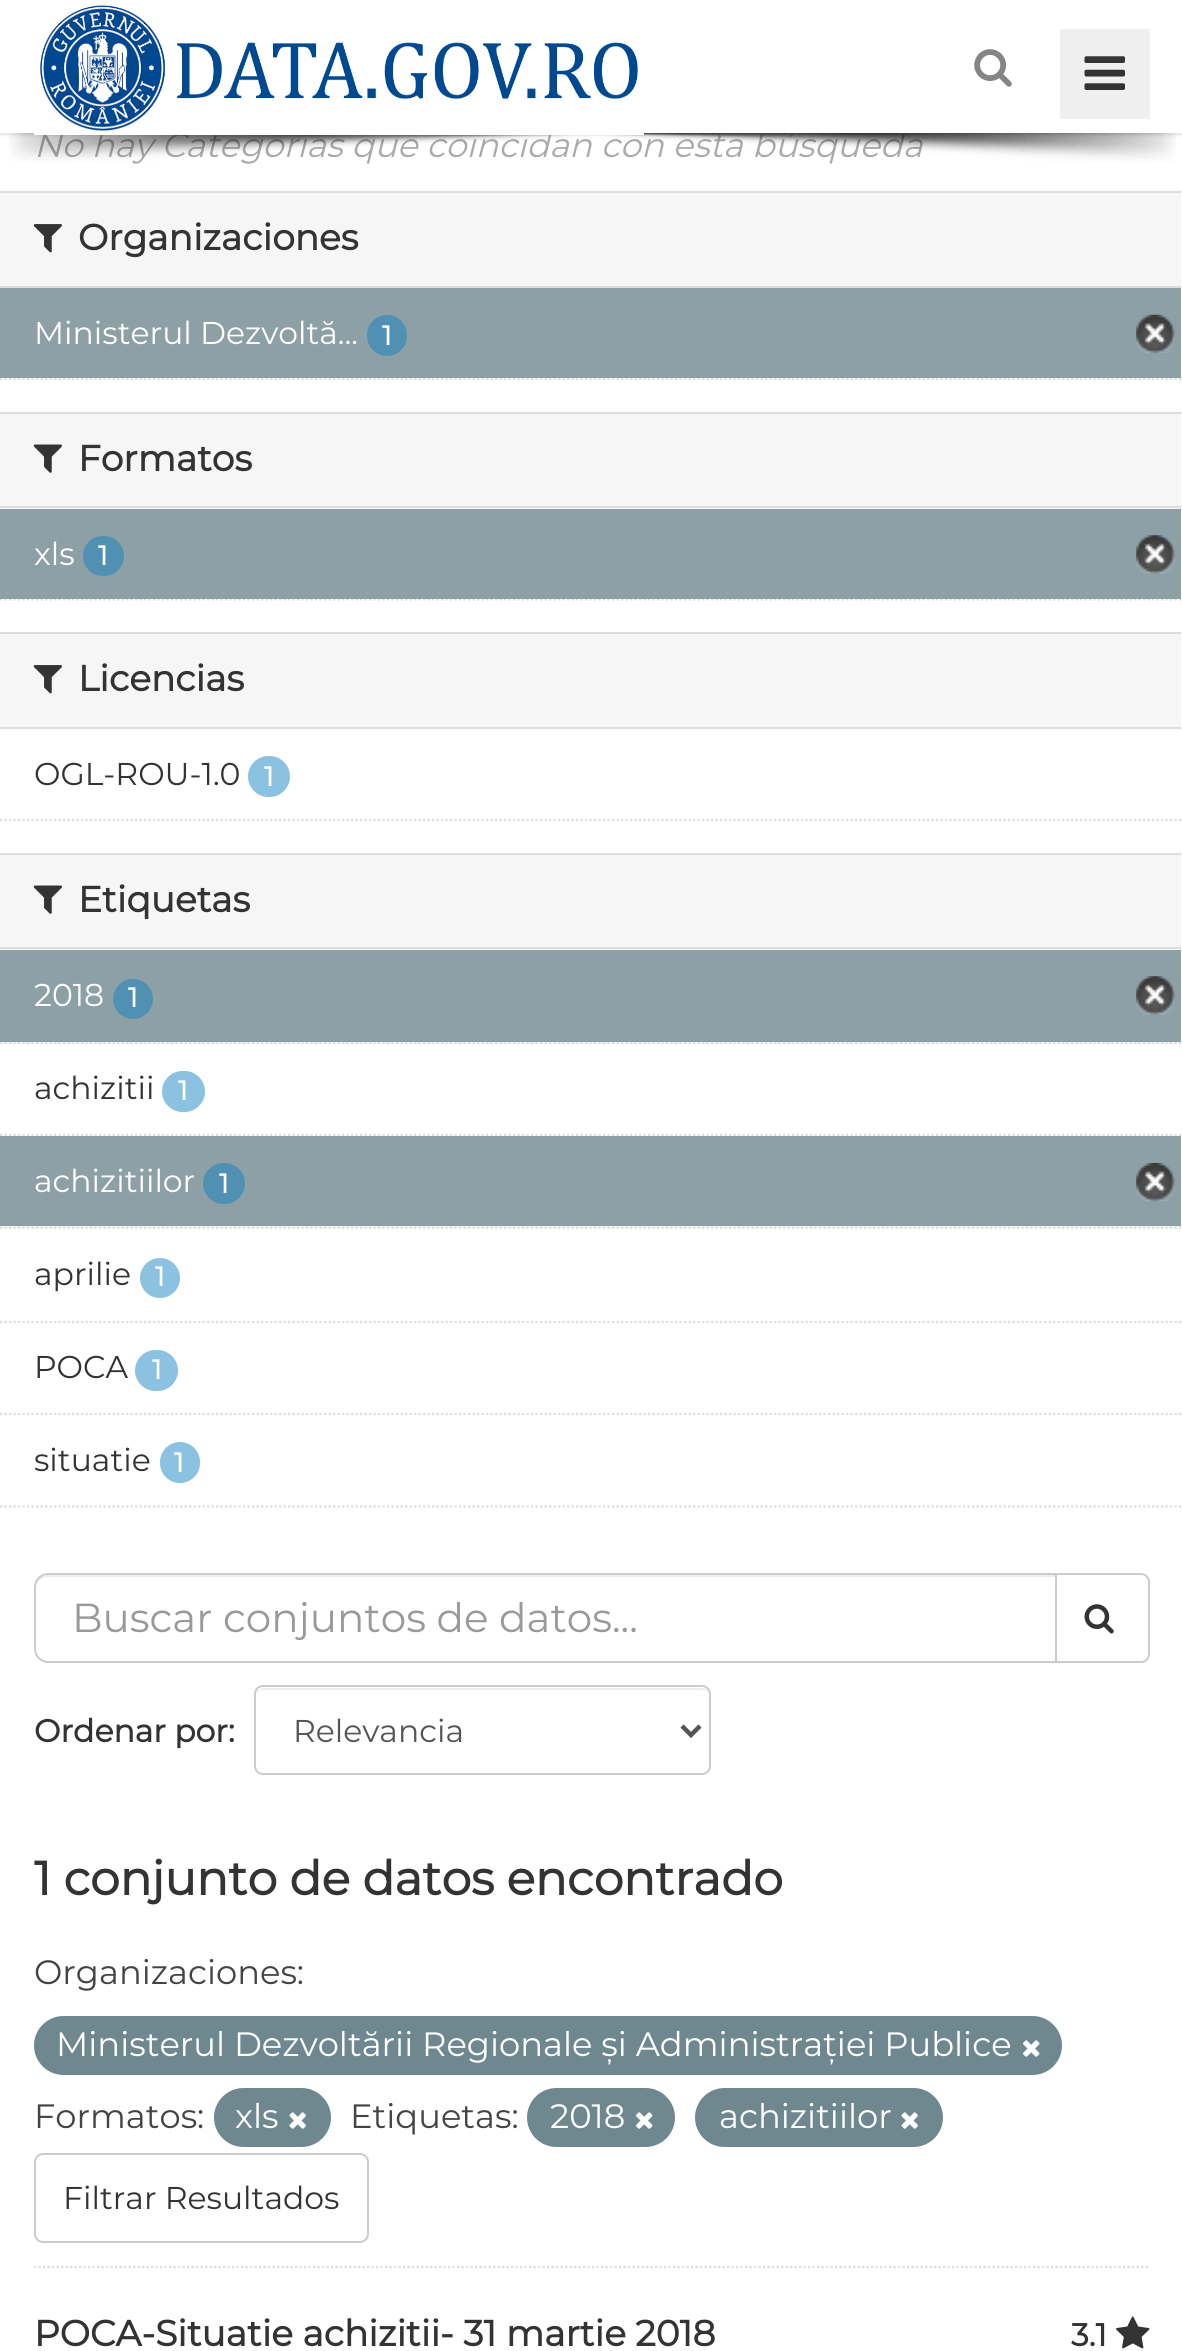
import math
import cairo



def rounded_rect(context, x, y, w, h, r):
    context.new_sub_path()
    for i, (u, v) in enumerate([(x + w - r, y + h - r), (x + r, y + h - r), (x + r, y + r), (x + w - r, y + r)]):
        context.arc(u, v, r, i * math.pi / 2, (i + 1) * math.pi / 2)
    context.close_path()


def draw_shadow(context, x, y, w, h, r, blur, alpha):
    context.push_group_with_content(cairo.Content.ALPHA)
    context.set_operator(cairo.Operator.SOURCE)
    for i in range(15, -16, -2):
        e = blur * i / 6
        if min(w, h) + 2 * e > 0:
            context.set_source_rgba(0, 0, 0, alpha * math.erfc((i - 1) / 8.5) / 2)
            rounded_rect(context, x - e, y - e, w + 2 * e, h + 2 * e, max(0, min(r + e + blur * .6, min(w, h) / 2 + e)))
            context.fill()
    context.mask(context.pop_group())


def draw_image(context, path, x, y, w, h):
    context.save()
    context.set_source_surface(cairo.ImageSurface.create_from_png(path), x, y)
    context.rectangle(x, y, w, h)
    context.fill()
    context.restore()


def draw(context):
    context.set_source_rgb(1, 1, 1)
    context.paint()
    context.set_source_rgb(0, 0, 0)
    draw_shadow(context, 0, 0, 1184, 135, 0, 2, 0.1)
    context.set_source_rgb(246 / 255, 246 / 255, 246 / 255)
    context.rectangle(0, 193, 1181, 93)
    context.fill()
    context.set_source_rgb(221 / 255, 221 / 255, 221 / 255)
    context.rectangle(0, 191, 1181, 2)
    context.fill()
    context.rectangle(0, 286, 1181, 2)
    context.fill()
    draw_image(context, "images/5.png", 33, 224, 29, 29)
    context.new_path()
    context.move_to(0, 379)
    context.line_to(1181, 379)
    context.set_line_width(2.2)
    context.set_dash([2.25, 2.25])
    context.stroke()
    context.set_source_rgb(140 / 255, 160 / 255, 166 / 255)
    context.rectangle(0, 288, 1181, 90)
    context.fill()
    context.set_source_rgb(80 / 255, 144 / 255, 179 / 255)
    rounded_rect(context, 367, 315, 40, 41, 20)
    context.fill()
    draw_image(context, "images/6.png", 1136, 314, 39, 39)
    context.set_source_rgb(246 / 255, 246 / 255, 246 / 255)
    context.rectangle(0, 414, 1181, 95)
    context.fill()
    context.set_source_rgb(221 / 255, 221 / 255, 221 / 255)
    context.rectangle(0, 412, 1181, 2)
    context.fill()
    context.rectangle(0, 506, 1181, 2)
    context.fill()
    draw_image(context, "images/7.png", 33, 444, 29, 29)
    context.new_path()
    context.move_to(0, 599.5)
    context.line_to(1181, 599.5)
    context.stroke()
    context.set_source_rgb(140 / 255, 160 / 255, 166 / 255)
    context.rectangle(0, 509, 1181, 90)
    context.fill()
    context.set_source_rgb(80 / 255, 144 / 255, 179 / 255)
    rounded_rect(context, 83, 536, 41, 40, 20)
    context.fill()
    draw_image(context, "images/8.png", 1136, 535, 39, 39)
    context.set_source_rgb(246 / 255, 246 / 255, 246 / 255)
    context.rectangle(0, 634, 1181, 93)
    context.fill()
    context.set_source_rgb(221 / 255, 221 / 255, 221 / 255)
    context.rectangle(0, 632, 1181, 2)
    context.fill()
    context.rectangle(0, 727, 1181, 2)
    context.fill()
    draw_image(context, "images/5.png", 33, 665, 29, 29)
    context.set_source_rgb(139 / 255, 193 / 255, 225 / 255)
    rounded_rect(context, 248, 756, 42, 41, 20.5)
    context.fill()
    context.new_path()
    context.move_to(0, 820)
    context.line_to(1181, 820)
    context.set_source_rgb(221 / 255, 221 / 255, 221 / 255)
    context.stroke()
    context.set_source_rgb(246 / 255, 246 / 255, 246 / 255)
    context.rectangle(0, 855, 1181, 95)
    context.fill()
    context.set_source_rgb(221 / 255, 221 / 255, 221 / 255)
    context.rectangle(0, 853, 1181, 2)
    context.fill()
    context.rectangle(0, 947, 1181, 2)
    context.fill()
    draw_image(context, "images/7.png", 33, 885, 29, 29)
    context.set_source_rgb(246 / 255, 246 / 255, 246 / 255)
    context.rectangle(2, 1042, 1177, 2)
    context.fill()
    context.new_path()
    context.move_to(0, 1043)
    context.line_to(1181, 1043)
    context.set_source_rgb(221 / 255, 221 / 255, 221 / 255)
    context.stroke()
    context.set_source_rgb(140 / 255, 160 / 255, 166 / 255)
    context.rectangle(0, 950, 1181, 92)
    context.fill()
    context.set_source_rgb(80 / 255, 144 / 255, 179 / 255)
    context.arc(133, 999, 20, 0, 2 * math.pi)
    context.fill()
    draw_image(context, "images/8.png", 1136, 976, 39, 39)
    context.new_path()
    context.move_to(0, 1135)
    context.line_to(1181, 1135)
    context.set_source_rgb(221 / 255, 221 / 255, 221 / 255)
    context.stroke()
    context.set_source_rgb(139 / 255, 193 / 255, 225 / 255)
    rounded_rect(context, 162, 1071, 43, 41, 20.5)
    context.fill()
    context.set_source_rgb(246 / 255, 246 / 255, 246 / 255)
    context.rectangle(0, 1226, 1181, 3)
    context.fill()
    context.new_path()
    context.move_to(0, 1227.5)
    context.line_to(1181, 1227.5)
    context.set_source_rgb(221 / 255, 221 / 255, 221 / 255)
    context.stroke()
    context.set_source_rgb(140 / 255, 160 / 255, 166 / 255)
    context.rectangle(0, 1136, 1181, 90)
    context.fill()
    context.set_source_rgb(80 / 255, 144 / 255, 179 / 255)
    rounded_rect(context, 203, 1163, 42, 41, 20.5)
    context.fill()
    draw_image(context, "images/9.png", 1136, 1163, 39, 39)
    context.new_path()
    context.move_to(0, 1322)
    context.line_to(1181, 1322)
    context.set_source_rgb(221 / 255, 221 / 255, 221 / 255)
    context.stroke()
    context.set_source_rgb(139 / 255, 193 / 255, 225 / 255)
    context.arc(160, 1278, 20, 0, 2 * math.pi)
    context.fill()
    context.new_path()
    context.move_to(0, 1414)
    context.line_to(1181, 1414)
    context.set_source_rgb(221 / 255, 221 / 255, 221 / 255)
    context.stroke()
    context.set_source_rgb(139 / 255, 193 / 255, 225 / 255)
    rounded_rect(context, 135, 1350, 43, 41, 20.5)
    context.fill()
    rounded_rect(context, 160, 1442, 40, 41, 20)
    context.fill()
    context.new_path()
    context.move_to(0, 1506.5)
    context.line_to(1181, 1506.5)
    context.set_source_rgb(221 / 255, 221 / 255, 221 / 255)
    context.stroke()
    context.new_path()
    context.move_to(34, 2267)
    context.line_to(1150, 2267)
    context.stroke()
    context.set_source_rgb(236 / 255, 236 / 255, 236 / 255)
    context.new_path()
    context.move_to(47, 1577)
    context.line_to(1055, 1577)
    context.line_to(1055, 1575)
    context.line_to(47, 1575)
    context.curve_to(41, 1575, 36, 1580, 36, 1586)
    context.line_to(36, 1588)
    context.curve_to(36, 1582, 41, 1577, 47, 1577)
    context.close_path()
    context.fill()
    context.new_path()
    context.move_to(48, 1574)
    context.line_to(1057, 1574)
    context.line_to(1057, 1662)
    context.line_to(48, 1662)
    context.curve_to(41, 1662, 35, 1656, 35, 1649)
    context.line_to(35, 1587)
    context.curve_to(35, 1580, 41, 1574, 48, 1574)
    context.close_path()
    context.set_source_rgb(204 / 255, 204 / 255, 204 / 255)
    context.set_line_width(2)
    context.set_dash([])
    context.stroke()
    context.set_source_rgb(1, 1, 1)
    context.new_path()
    context.move_to(1056, 1574)
    context.line_to(1141, 1574)
    context.curve_to(1145.5, 1574, 1149, 1577.5, 1149, 1582)
    context.line_to(1149, 1654)
    context.curve_to(1149, 1658.5, 1145.5, 1662, 1141, 1662)
    context.line_to(1056, 1662)
    context.close_path()
    context.fill_preserve()
    context.set_source_rgb(204 / 255, 204 / 255, 204 / 255)
    context.stroke()
    draw_image(context, "images/10.png", 1084, 1604, 30, 30)
    context.set_source_rgb(236 / 255, 236 / 255, 236 / 255)
    context.new_path()
    context.move_to(263, 1690)
    context.line_to(702, 1690)
    context.curve_to(706, 1690, 709, 1693, 709, 1696)
    context.line_to(709, 1695)
    context.curve_to(709, 1691, 706, 1688, 702, 1688)
    context.line_to(264, 1688)
    context.curve_to(261, 1688, 258, 1690, 257, 1693)
    context.curve_to(259, 1691, 261, 1690, 263, 1690)
    context.close_path()
    context.fill()
    rounded_rect(context, 255, 1686, 455, 88, 8)
    context.set_source_rgb(204 / 255, 204 / 255, 204 / 255)
    context.stroke()
    context.new_path()
    context.move_to(682, 1726)
    context.line_to(691, 1735)
    context.line_to(700, 1726)
    context.set_source_rgb(85 / 255, 85 / 255, 85 / 255)
    context.set_line_width(4.5)
    context.stroke()
    context.set_source_rgb(111 / 255, 136 / 255, 144 / 255)
    rounded_rect(context, 34, 2016, 1028, 59, 29.5)
    context.fill()
    draw_image(context, "images/11.png", 1023, 2040, 17, 17)
    rounded_rect(context, 214, 2088, 117, 59, 29.5)
    context.fill()
    draw_image(context, "images/12.png", 289, 2112, 17, 17)
    rounded_rect(context, 527, 2088, 148, 59, 29.5)
    context.fill()
    draw_image(context, "images/11.png", 636, 2112, 17, 17)
    rounded_rect(context, 695, 2088, 248, 59, 29.5)
    context.fill()
    draw_image(context, "images/12.png", 901, 2112, 17, 17)
    rounded_rect(context, 35, 2154, 333, 88, 8)
    context.set_source_rgb(204 / 255, 204 / 255, 204 / 255)
    context.set_line_width(2)
    context.stroke()
    draw_image(context, "images/13.png", 1116, 2316, 34, 33)
    context.select_font_face("Montserrat Thin", cairo.FontSlant.ITALIC)
    context.set_font_size(33.75)
    context.set_source_rgb(170 / 255, 170 / 255, 170 / 255)
    context.move_to(34, 157)
    context.show_text("No hay Categorias que coincidan con esta búsqueda")
    context.set_source_rgb(1, 1, 1)
    context.rectangle(0, 0, 1182, 133)
    context.fill()
    draw_image(context, "images/2.png", 974, 49, 38, 38)
    context.set_source_rgb(235 / 255, 235 / 255, 235 / 255)
    context.rectangle(0, 133, 1182, 2)
    context.fill()
    draw_image(context, "images/4.png", 9, 133, 1167, 29)
    draw_image(context, "images/1.png", 34, 5, 610, 130)
    context.set_source_rgb(239 / 255, 239 / 255, 239 / 255)
    context.rectangle(1060, 29, 90, 90)
    context.fill()
    draw_image(context, "images/3.png", 1084, 56, 41, 34)
    context.select_font_face("Montserrat", cairo.FontSlant.NORMAL, cairo.FontWeight.BOLD)
    context.set_font_size(36)
    context.set_source_rgb(51 / 255, 51 / 255, 51 / 255)
    context.move_to(78, 250)
    context.show_text("Organizaciones")
    context.select_font_face("Montserrat Thin")
    context.set_font_size(31.5)
    context.set_source_rgb(1, 1, 1)
    context.move_to(34, 344)
    context.show_text("Ministerul Dezvoltă...")
    context.select_font_face("Montserrat", cairo.FontSlant.NORMAL, cairo.FontWeight.BOLD)
    context.set_font_size(27)
    context.move_to(382, 345)
    context.show_text("1")
    context.set_font_size(36)
    context.set_source_rgb(51 / 255, 51 / 255, 51 / 255)
    context.move_to(78, 471)
    context.show_text("Formatos")
    context.select_font_face("Montserrat Thin")
    context.set_font_size(31.5)
    context.set_source_rgb(1, 1, 1)
    context.move_to(34, 565)
    context.show_text("xls")
    context.select_font_face("Montserrat", cairo.FontSlant.NORMAL, cairo.FontWeight.BOLD)
    context.set_font_size(27)
    context.move_to(98, 565)
    context.show_text("1")
    context.set_font_size(36)
    context.set_source_rgb(51 / 255, 51 / 255, 51 / 255)
    context.move_to(78, 691)
    context.show_text("Licencias")
    context.select_font_face("Montserrat Thin")
    context.set_font_size(31.5)
    context.move_to(34, 785)
    context.show_text("OGL-ROU-1.0")
    context.select_font_face("Montserrat", cairo.FontSlant.NORMAL, cairo.FontWeight.BOLD)
    context.set_font_size(27)
    context.set_source_rgb(1, 1, 1)
    context.move_to(264, 786)
    context.show_text("1")
    context.set_font_size(36)
    context.set_source_rgb(51 / 255, 51 / 255, 51 / 255)
    context.move_to(78, 912)
    context.show_text("Etiquetas")
    context.select_font_face("Montserrat Thin")
    context.set_font_size(31.5)
    context.set_source_rgb(1, 1, 1)
    context.move_to(34, 1006)
    context.show_text("2018")
    context.select_font_face("Montserrat", cairo.FontSlant.NORMAL, cairo.FontWeight.BOLD)
    context.set_font_size(27)
    context.move_to(128, 1007)
    context.show_text("1")
    context.select_font_face("Montserrat Thin")
    context.set_font_size(31.5)
    context.set_source_rgb(51 / 255, 51 / 255, 51 / 255)
    context.move_to(34, 1099)
    context.show_text("achizitii")
    context.select_font_face("Montserrat", cairo.FontSlant.NORMAL, cairo.FontWeight.BOLD)
    context.set_font_size(27)
    context.set_source_rgb(1, 1, 1)
    context.move_to(178, 1100)
    context.show_text("1")
    context.select_font_face("Montserrat Thin")
    context.set_font_size(31.5)
    context.move_to(34, 1192)
    context.show_text("achizitiilor")
    context.select_font_face("Montserrat", cairo.FontSlant.NORMAL, cairo.FontWeight.BOLD)
    context.set_font_size(27)
    context.move_to(219, 1193)
    context.show_text("1")
    context.select_font_face("Montserrat Thin")
    context.set_font_size(31.5)
    context.set_source_rgb(51 / 255, 51 / 255, 51 / 255)
    context.move_to(34, 1285)
    context.show_text("aprilie")
    context.select_font_face("Montserrat", cairo.FontSlant.NORMAL, cairo.FontWeight.BOLD)
    context.set_font_size(27)
    context.set_source_rgb(1, 1, 1)
    context.move_to(155, 1286)
    context.show_text("1")
    context.select_font_face("Montserrat Thin")
    context.set_font_size(31.5)
    context.set_source_rgb(51 / 255, 51 / 255, 51 / 255)
    context.move_to(34, 1378)
    context.show_text("POCA")
    context.select_font_face("Montserrat", cairo.FontSlant.NORMAL, cairo.FontWeight.BOLD)
    context.set_font_size(27)
    context.set_source_rgb(1, 1, 1)
    context.move_to(152, 1379)
    context.show_text("1")
    context.select_font_face("Montserrat Thin")
    context.set_font_size(31.5)
    context.set_source_rgb(51 / 255, 51 / 255, 51 / 255)
    context.move_to(34, 1471)
    context.show_text("situatie")
    context.select_font_face("Montserrat", cairo.FontSlant.NORMAL, cairo.FontWeight.BOLD)
    context.set_font_size(27)
    context.set_source_rgb(1, 1, 1)
    context.move_to(174, 1472)
    context.show_text("1")
    context.select_font_face("Montserrat Thin")
    context.set_font_size(40.5)
    context.set_source_rgb(153 / 255, 153 / 255, 153 / 255)
    context.move_to(72, 1632)
    context.show_text("Buscar conjuntos de datos...")
    context.select_font_face("Montserrat", cairo.FontSlant.NORMAL, cairo.FontWeight.BOLD)
    context.set_font_size(31.5)
    context.set_source_rgb(51 / 255, 51 / 255, 51 / 255)
    context.move_to(34, 1742)
    context.show_text("Ordenar por:")
    context.select_font_face("Montserrat Thin")
    context.set_source_rgb(85 / 255, 85 / 255, 85 / 255)
    context.move_to(293, 1742)
    context.show_text("Relevancia")
    context.select_font_face("Montserrat", cairo.FontSlant.NORMAL, cairo.FontWeight.BOLD)
    context.set_font_size(47.25)
    context.set_source_rgb(51 / 255, 51 / 255, 51 / 255)
    context.move_to(34, 1895)
    context.show_text("1 conjunto de datos encontrado")
    context.select_font_face("Montserrat Thin")
    context.set_font_size(33.75)
    context.set_source_rgb(68 / 255, 68 / 255, 68 / 255)
    context.move_to(34, 1984)
    context.show_text("Organizaciones:")
    context.set_source_rgb(1, 1, 1)
    context.move_to(56, 2056)
    context.show_text("Ministerul Dezvoltării Regionale și Administrației Publice")
    context.set_source_rgb(68 / 255, 68 / 255, 68 / 255)
    context.move_to(34, 2128)
    context.show_text("Formatos:")
    context.set_source_rgb(1, 1, 1)
    context.move_to(235, 2128)
    context.show_text("xls")
    context.set_source_rgb(68 / 255, 68 / 255, 68 / 255)
    context.move_to(350, 2128)
    context.show_text("Etiquetas:")
    context.set_source_rgb(1, 1, 1)
    context.move_to(550, 2128)
    context.show_text("2018")
    context.move_to(719, 2128)
    context.show_text("achizitiilor")
    context.set_font_size(31.5)
    context.set_source_rgb(51 / 255, 51 / 255, 51 / 255)
    context.move_to(63, 2209)
    context.show_text("Filtrar Resultados")
    context.select_font_face("Montserrat", cairo.FontSlant.NORMAL, cairo.FontWeight.BOLD)
    context.set_font_size(36)
    context.move_to(34, 2346)
    context.show_text("POCA-Situatie achizitii- 31 martie 2018")
    context.set_font_size(31.5)
    context.move_to(1071, 2346)
    context.show_text("3.1")


surface = cairo.ImageSurface(cairo.Format.RGB24, 1182, 2351)
context = cairo.Context(surface)
options = cairo.FontOptions()
options.set_hint_metrics(cairo.HintMetrics.OFF)
options.set_hint_style(cairo.HintStyle.NONE)
context.set_font_options(options)
context.set_miter_limit(4)
draw(context)
surface.write_to_png("out.png")
